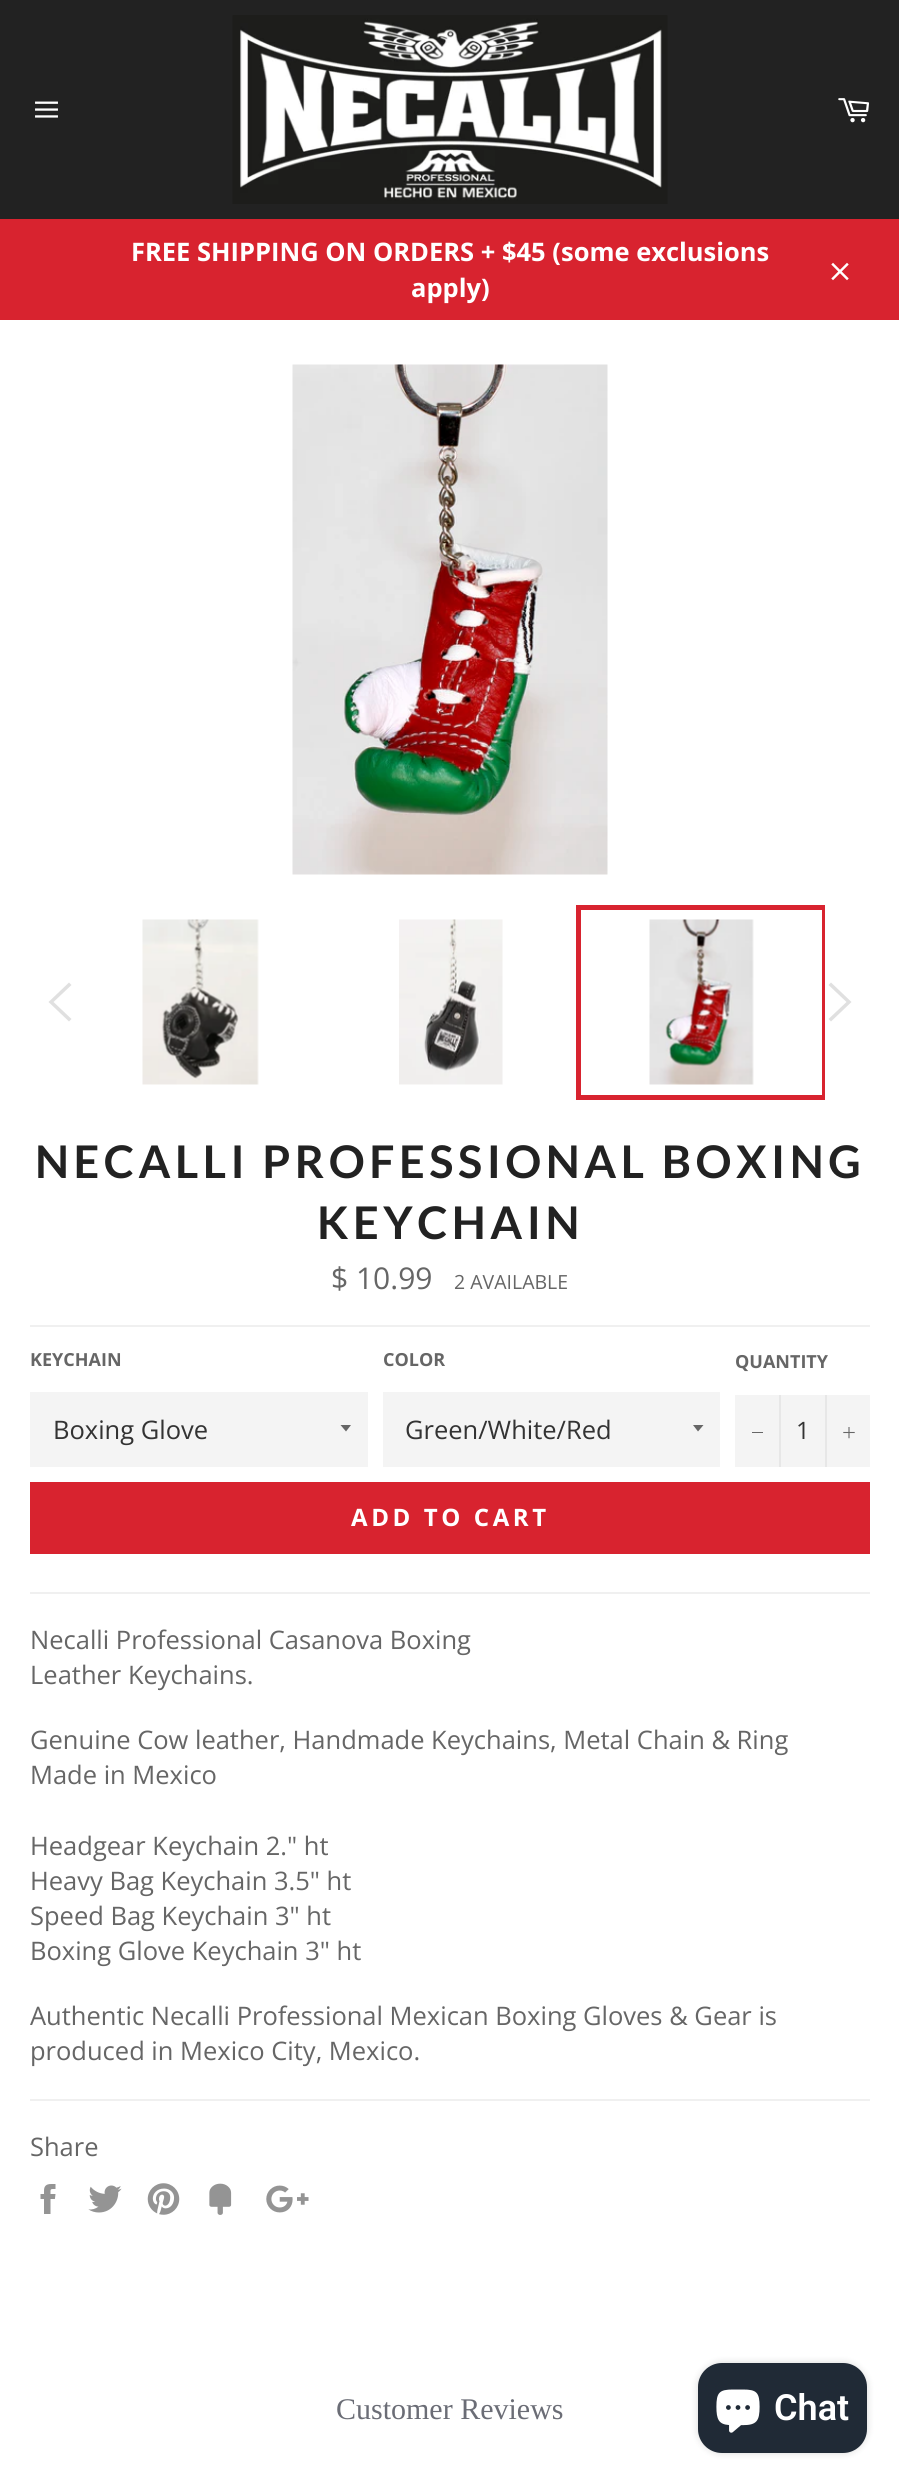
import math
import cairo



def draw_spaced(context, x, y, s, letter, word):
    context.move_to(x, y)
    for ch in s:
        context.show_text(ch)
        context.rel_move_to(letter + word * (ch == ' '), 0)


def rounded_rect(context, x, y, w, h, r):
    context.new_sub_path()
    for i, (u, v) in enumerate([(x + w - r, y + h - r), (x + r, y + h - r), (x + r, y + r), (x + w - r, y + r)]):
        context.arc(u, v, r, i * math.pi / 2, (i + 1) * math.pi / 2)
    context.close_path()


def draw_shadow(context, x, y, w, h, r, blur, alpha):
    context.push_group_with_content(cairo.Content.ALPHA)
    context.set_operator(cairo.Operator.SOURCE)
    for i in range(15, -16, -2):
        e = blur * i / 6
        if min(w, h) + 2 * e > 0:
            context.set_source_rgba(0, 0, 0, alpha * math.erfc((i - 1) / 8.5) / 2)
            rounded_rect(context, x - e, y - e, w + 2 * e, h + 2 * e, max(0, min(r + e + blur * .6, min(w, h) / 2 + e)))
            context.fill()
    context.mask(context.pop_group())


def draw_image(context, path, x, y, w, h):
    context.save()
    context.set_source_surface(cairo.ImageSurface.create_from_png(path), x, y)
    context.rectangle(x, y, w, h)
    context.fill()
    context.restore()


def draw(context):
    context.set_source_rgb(1, 1, 1)
    context.paint()
    context.set_source_rgb(34 / 255, 34 / 255, 34 / 255)
    context.rectangle(0, 0, 899, 219)
    context.fill()
    draw_image(context, "images/1.png", 35, 101, 23, 17)
    draw_image(context, "images/2.png", 232, 15, 436, 189)
    draw_image(context, "images/3.png", 838, 98, 31, 25)
    context.set_source_rgb(216 / 255, 35 / 255, 47 / 255)
    context.rectangle(0, 219, 899, 101)
    context.fill()
    draw_image(context, "images/4.png", 831, 262, 18, 19)
    draw_image(context, "images/5.png", 292, 364, 316, 511)
    context.set_source_rgb(224 / 255, 224 / 255, 224 / 255)
    context.new_path()
    context.move_to(71.5, 1019)
    context.line_to(69, 1021.5)
    context.line_to(48.5, 1002)
    context.line_to(69, 982.5)
    context.line_to(71.5, 985)
    context.line_to(53.5, 1002)
    context.close_path()
    context.fill()
    draw_image(context, "images/6.png", 142, 919, 117, 166)
    draw_image(context, "images/7.png", 399, 919, 104, 166)
    draw_image(context, "images/8.png", 649, 919, 105, 166)
    context.save()
    context.rectangle(75, 905, 750, 195)
    context.clip()
    context.rectangle(578.5, 907.5, 246, 190)
    context.set_source_rgb(216 / 255, 35 / 255, 47 / 255)
    context.set_line_width(5)
    context.stroke()
    context.restore()
    context.new_path()
    context.move_to(828.5, 985)
    context.line_to(831, 982.5)
    context.line_to(851.5, 1002)
    context.line_to(831, 1021.5)
    context.line_to(828.5, 1019)
    context.line_to(846.5, 1002)
    context.close_path()
    context.fill()
    context.set_source_rgb(240 / 255, 240 / 255, 240 / 255)
    context.rectangle(30, 1325, 840, 2)
    context.fill()
    context.set_source_rgb(244 / 255, 244 / 255, 244 / 255)
    context.rectangle(30, 1392, 338, 75)
    context.fill()
    context.set_source_rgb(102 / 255, 102 / 255, 102 / 255)
    context.new_path()
    context.move_to(340.5, 1425)
    context.line_to(346, 1431.5)
    context.line_to(351, 1425)
    context.close_path()
    context.fill()
    context.set_source_rgb(244 / 255, 244 / 255, 244 / 255)
    context.rectangle(383, 1392, 337, 75)
    context.fill()
    context.set_source_rgb(102 / 255, 102 / 255, 102 / 255)
    context.new_path()
    context.move_to(693, 1425)
    context.line_to(698, 1431.5)
    context.line_to(703.5, 1425)
    context.close_path()
    context.fill()
    context.set_source_rgb(244 / 255, 244 / 255, 244 / 255)
    context.rectangle(735, 1395, 135, 72)
    context.fill()
    context.set_source_rgb(231 / 255, 231 / 255, 231 / 255)
    context.rectangle(779, 1395, 2, 72)
    context.fill()
    context.set_source_rgb(102 / 255, 102 / 255, 102 / 255)
    context.rectangle(752, 1432, 11, 1)
    context.fill()
    context.set_source_rgb(231 / 255, 231 / 255, 231 / 255)
    context.rectangle(825, 1395, 2, 72)
    context.fill()
    draw_image(context, "images/9.png", 843, 1427, 12, 12)
    context.set_source_rgb(216 / 255, 35 / 255, 47 / 255)
    context.rectangle(30, 1482, 840, 72)
    context.fill()
    context.set_source_rgb(240 / 255, 240 / 255, 240 / 255)
    context.rectangle(30, 1592, 840, 2)
    context.fill()
    context.rectangle(30, 2099, 840, 2)
    context.fill()
    draw_image(context, "images/10.png", 40, 2184, 16, 30)
    draw_image(context, "images/11.png", 88, 2185, 34, 28)
    draw_image(context, "images/12.png", 147, 2183, 33, 32)
    draw_image(context, "images/13.png", 209, 2183, 23, 32)
    draw_image(context, "images/14.png", 266, 2185, 43, 28)
    context.set_source_rgb(0, 0, 0)
    draw_shadow(context, 698, 2363, 169, 90, 24, 4, 0.15)
    context.set_source_rgb(32 / 255, 42 / 255, 54 / 255)
    rounded_rect(context, 698, 2363, 169, 90, 24)
    context.fill()
    draw_image(context, "images/15.png", 716, 2389, 44, 44)
    context.select_font_face("Open Sans", cairo.FontSlant.NORMAL, cairo.FontWeight.BOLD)
    context.set_font_size(25.5)
    context.set_source_rgb(1, 1, 1)
    context.move_to(131, 261)
    context.show_text("FREE SHIPPING ON ORDERS + $45 (some exclusions")
    context.move_to(411, 297)
    context.show_text("apply)")
    context.select_font_face("Lato", cairo.FontSlant.NORMAL, cairo.FontWeight.BOLD)
    context.set_font_size(45)
    context.set_source_rgb(34 / 255, 34 / 255, 34 / 255)
    draw_spaced(context, 35, 1178, "NECALLI PROFESSIONAL BOXING", 4.5, 0)
    draw_spaced(context, 317, 1239, "KEYCHAIN", 4.5, 0)
    context.select_font_face("Open Sans")
    context.set_font_size(30)
    context.set_source_rgb(102 / 255, 102 / 255, 102 / 255)
    context.move_to(331, 1289)
    context.show_text("$ 10.99")
    context.set_font_size(19.5)
    context.move_to(454, 1289)
    context.show_text("2 AVAILABLE")
    context.select_font_face("Open Sans", cairo.FontSlant.NORMAL, cairo.FontWeight.BOLD)
    context.set_font_size(18)
    context.move_to(30, 1366)
    context.show_text("KEYCHAIN")
    context.select_font_face("Open Sans")
    context.set_font_size(25.5)
    context.set_source_rgb(51 / 255, 51 / 255, 51 / 255)
    context.move_to(53, 1439)
    context.show_text("Boxing Glove")
    context.select_font_face("Open Sans", cairo.FontSlant.NORMAL, cairo.FontWeight.BOLD)
    context.set_font_size(18)
    context.set_source_rgb(102 / 255, 102 / 255, 102 / 255)
    context.move_to(383, 1366)
    context.show_text("COLOR")
    context.select_font_face("Open Sans")
    context.set_font_size(25.5)
    context.set_source_rgb(51 / 255, 51 / 255, 51 / 255)
    context.move_to(405, 1439)
    context.show_text("Green/White/Red")
    context.select_font_face("Open Sans", cairo.FontSlant.NORMAL, cairo.FontWeight.BOLD)
    context.set_font_size(18)
    context.set_source_rgb(102 / 255, 102 / 255, 102 / 255)
    context.move_to(735, 1368)
    context.show_text("QUANTITY")
    context.select_font_face("Open Sans")
    context.set_font_size(24)
    context.set_source_rgb(51 / 255, 51 / 255, 51 / 255)
    context.move_to(796, 1439)
    context.show_text("1")
    context.select_font_face("Open Sans", cairo.FontSlant.NORMAL, cairo.FontWeight.BOLD)
    context.set_source_rgb(1, 1, 1)
    draw_spaced(context, 351, 1526, "ADD TO CART", 3.6, 0)
    context.select_font_face("Open Sans")
    context.set_font_size(25.5)
    context.set_source_rgb(102 / 255, 102 / 255, 102 / 255)
    context.move_to(30, 1649)
    context.show_text("Necalli Professional Casanova Boxing")
    context.move_to(30, 1684)
    context.show_text("Leather Keychains.")
    context.move_to(30, 1749)
    context.show_text("Genuine Cow leather, Handmade Keychains, Metal Chain & Ring")
    context.move_to(30, 1784)
    context.show_text("Made in Mexico")
    context.move_to(30, 1855)
    context.show_text("Headgear Keychain 2.\" ht")
    context.move_to(30, 1890)
    context.show_text("Heavy Bag Keychain 3.5\" ht")
    context.move_to(30, 1925)
    context.show_text("Speed Bag Keychain 3\" ht")
    context.move_to(30, 1960)
    context.show_text("Boxing Glove Keychain 3\" ht")
    context.move_to(30, 2025)
    context.show_text("Authentic Necalli Professional Mexican Boxing Gloves & Gear is")
    context.move_to(30, 2060)
    context.show_text("produced in Mexico City, Mexico.")
    context.move_to(30, 2156)
    context.show_text("Share")
    context.select_font_face("Liberation Serif")
    context.set_font_size(30)
    context.set_source_rgb(107 / 255, 109 / 255, 118 / 255)
    context.move_to(336, 2419)
    context.show_text("Customer Reviews")
    context.select_font_face("Roboto SemiBold")
    context.set_font_size(36)
    context.set_source_rgb(1, 1, 1)
    context.move_to(774, 2420)
    context.show_text("Chat")


surface = cairo.ImageSurface(cairo.Format.RGB24, 899, 2484)
context = cairo.Context(surface)
options = cairo.FontOptions()
options.set_hint_metrics(cairo.HintMetrics.OFF)
options.set_hint_style(cairo.HintStyle.NONE)
context.set_font_options(options)
context.set_miter_limit(4)
draw(context)
surface.write_to_png("out.png")
